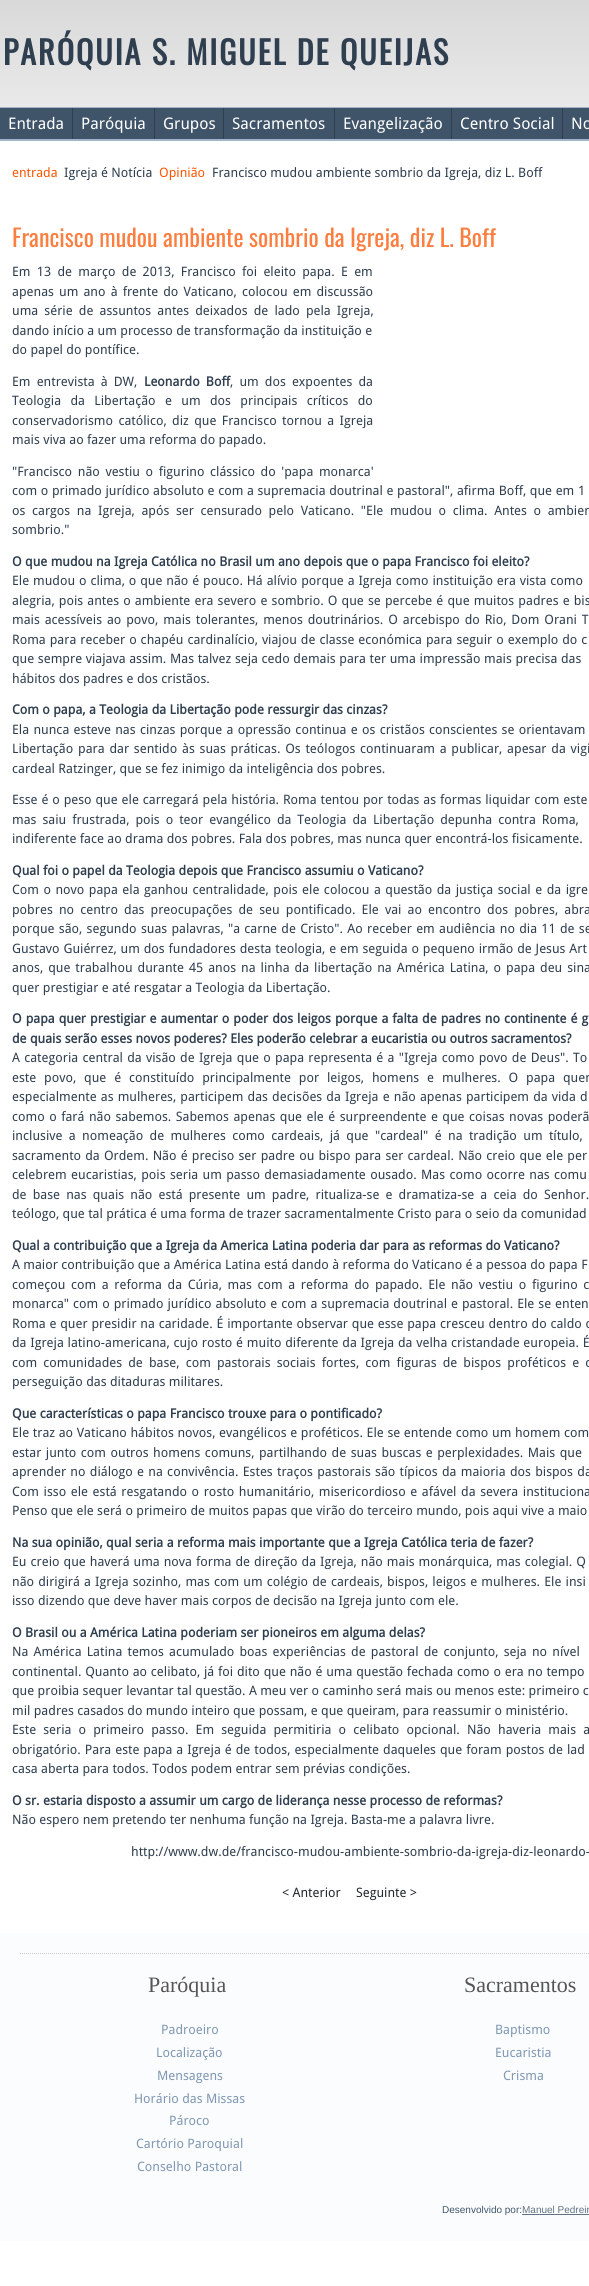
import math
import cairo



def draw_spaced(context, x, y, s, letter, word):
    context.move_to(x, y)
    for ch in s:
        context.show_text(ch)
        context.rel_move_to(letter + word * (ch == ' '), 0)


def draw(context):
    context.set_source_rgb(1, 1, 1)
    context.paint()
    gradient = cairo.LinearGradient(500, 0, 500, 2286)
    gradient.add_color_stop_rgba(0, 217 / 255, 217 / 255, 217 / 255, 1)
    gradient.add_color_stop_rgba(0.11, 1, 1, 1, 1)
    context.set_source(gradient)
    context.rectangle(0, 0, 589, 235)
    context.fill()
    context.set_source_rgb(48 / 255, 63 / 255, 80 / 255)
    context.rectangle(72, 108, 491, 31)
    context.fill()
    context.set_source_rgb(163 / 255, 180 / 255, 200 / 255)
    context.rectangle(0, 107, 589, 1)
    context.fill()
    context.rectangle(0, 139, 589, 2)
    context.fill()
    context.set_source_rgb(63 / 255, 83 / 255, 105 / 255)
    context.rectangle(0, 108, 72, 31)
    context.fill()
    context.rectangle(73, 108, 81, 31)
    context.fill()
    context.rectangle(155, 108, 68, 31)
    context.fill()
    context.rectangle(224, 108, 110, 31)
    context.fill()
    context.rectangle(335, 108, 116, 31)
    context.fill()
    context.rectangle(452, 108, 110, 31)
    context.fill()
    context.rectangle(563, 108, 26, 31)
    context.fill()
    context.set_source_rgb(1, 1, 1)
    context.rectangle(0, 141, 589, 94)
    context.fill()
    context.set_source_rgb(251 / 255, 252 / 255, 253 / 255)
    context.rectangle(0, 1933, 589, 308)
    context.fill()
    context.new_path()
    context.move_to(20, 1953.5)
    context.line_to(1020, 1953.5)
    context.set_source_rgb(204 / 255, 204 / 255, 204 / 255)
    context.set_line_width(1)
    context.set_dash([1, 1])
    context.stroke()
    context.set_source_rgb(98 / 255, 115 / 255, 132 / 255)
    context.rectangle(522, 2214, 67, 1)
    context.fill()
    context.select_font_face("Oswald", cairo.FontSlant.NORMAL, cairo.FontWeight.BOLD)
    context.set_font_size(32)
    context.set_source_rgb(48 / 255, 63 / 255, 80 / 255)
    draw_spaced(context, 3, 65, "PARÓQUIA S. MIGUEL DE QUEIJAS", 2, 0)
    context.select_font_face("Droid Sans")
    context.set_font_size(16)
    context.set_source_rgb(1, 1, 1)
    context.move_to(8, 129)
    context.show_text("Entrada")
    context.move_to(81, 129)
    context.show_text("Paróquia")
    context.move_to(163, 129)
    context.show_text("Grupos")
    context.move_to(232, 129)
    context.show_text("Sacramentos")
    context.move_to(343, 129)
    context.show_text("Evangelização")
    context.move_to(460, 129)
    context.show_text("Centro Social")
    context.move_to(571, 129)
    context.show_text("No")
    context.set_font_size(13)
    context.set_source_rgb(250 / 255, 87 / 255, 5 / 255)
    context.move_to(12, 177)
    context.show_text("entrada")
    context.set_source_rgb(48 / 255, 63 / 255, 80 / 255)
    context.move_to(64, 177)
    context.show_text("Igreja é Notícia")
    context.set_source_rgb(250 / 255, 87 / 255, 5 / 255)
    context.move_to(159, 177)
    context.show_text("Opinião")
    context.set_source_rgb(48 / 255, 63 / 255, 80 / 255)
    context.move_to(212, 177)
    context.show_text("Francisco mudou ambiente sombrio da Igreja, diz L. Boff")
    context.select_font_face("Oswald")
    context.set_font_size(24)
    context.set_source_rgb(251 / 255, 127 / 255, 65 / 255)
    context.move_to(12, 247)
    context.show_text("Francisco mudou ambiente sombrio da Igreja, diz L. Boff")
    context.select_font_face("Droid Sans")
    context.set_font_size(13)
    context.set_source_rgb(48 / 255, 63 / 255, 80 / 255)
    draw_spaced(context, 12, 276, "Em 13 de março de 2013, Francisco foi eleito papa. E em", 0, 2.9)
    draw_spaced(context, 12, 296, "apenas um ano à frente do Vaticano, colocou em discussão", 0, 1.75)
    draw_spaced(context, 12, 315, "uma série de assuntos antes deixados de lado pela Igreja,", 0, 2.75)
    context.move_to(12, 335)
    context.show_text("dando início a um processo de transformação da instituição e")
    context.move_to(12, 354)
    context.show_text("do papel do pontífice.")
    draw_spaced(context, 12, 386, "Em entrevista à DW,", 0, 2.75)
    context.select_font_face("Droid Sans", cairo.FontSlant.NORMAL, cairo.FontWeight.BOLD)
    draw_spaced(context, 144, 386, "Leonardo Boff", 0, 2.75)
    context.select_font_face("Droid Sans")
    draw_spaced(context, 230, 386, ", um dos expoentes da", 0, 2.75)
    draw_spaced(context, 12, 405, "Teologia da Libertação e um dos principais críticos do", 0, 6)
    draw_spaced(context, 12, 425, "conservadorismo católico, diz que Francisco tornou a Igreja", 0, 2)
    context.move_to(12, 444)
    context.show_text("mais viva ao fazer uma reforma do papado.")
    draw_spaced(context, 12, 476, "\"Francisco não vestiu o figurino clássico do 'papa monarca'", 0, 2.25)
    draw_spaced(context, 12, 495, "com o primado jurídico absoluto e com a supremacia doutrinal e pastoral\", afirma Boff, que em 1", 0, 0.25)
    draw_spaced(context, 12, 515, "os cargos na Igreja, após ser censurado pelo Vaticano. \"Ele mudou o clima. Antes o ambien", 0, 3.25)
    context.move_to(12, 534)
    context.show_text("sombrio.\"")
    context.select_font_face("Droid Sans", cairo.FontSlant.NORMAL, cairo.FontWeight.BOLD)
    context.move_to(12, 566)
    context.show_text("O que mudou na Igreja Católica no Brasil um ano depois que o papa Francisco foi eleito?")
    context.select_font_face("Droid Sans")
    draw_spaced(context, 12, 585, "Ele mudou o clima, o que não é pouco. Há alívio porque a Igreja como instituição era vista como", 0, 0.5)
    draw_spaced(context, 12, 605, "alegria, pois antes o ambiente era severo e sombrio. O que se percebe é que muitos padres e bis", 0, 0.75)
    draw_spaced(context, 12, 624, "mais acessíveis ao povo, mais tolerantes, menos doutrinários. O arcebispo do Rio, Dom Orani T", 0, 1.5)
    draw_spaced(context, 12, 644, "Roma para receber o chapéu cardinalício, viajou de classe económica para seguir o exemplo do c", 0, 0.6)
    draw_spaced(context, 12, 663, "que sempre viajava assim. Mas talvez seja cedo demais para ter uma impressão mais precisa das", 0, 0.25)
    context.move_to(12, 683)
    context.show_text("hábitos dos padres e dos cristãos.")
    context.select_font_face("Droid Sans", cairo.FontSlant.NORMAL, cairo.FontWeight.BOLD)
    context.move_to(12, 714)
    context.show_text("Com o papa, a Teologia da Libertação pode ressurgir das cinzas?")
    context.select_font_face("Droid Sans")
    draw_spaced(context, 12, 734, "Ela nunca esteve nas cinzas porque a opressão continua e os cristãos conscientes se orientavam", 0, 0.9)
    draw_spaced(context, 12, 753, "Libertação para dar sentido às suas práticas. Os teólogos continuaram a publicar, apesar da vigi", 0, 1.4)
    context.move_to(12, 773)
    context.show_text("cardeal Ratzinger, que se fez inimigo da inteligência dos pobres.")
    draw_spaced(context, 12, 804, "Esse é o peso que ele carregará pela história. Roma tentou por todas as formas liquidar com este", 0, 0.5)
    draw_spaced(context, 12, 824, "mas saiu frustrada, pois o teor evangélico da Teologia da Libertação depunha contra Roma,", 0, 2.6)
    context.move_to(12, 843)
    context.show_text("indiferente face ao drama dos pobres. Fala dos pobres, mas nunca quer encontrá-los fisicamente.")
    context.select_font_face("Droid Sans", cairo.FontSlant.NORMAL, cairo.FontWeight.BOLD)
    context.move_to(12, 875)
    context.show_text("Qual foi o papel da Teologia depois que Francisco assumiu o Vaticano?")
    context.select_font_face("Droid Sans")
    draw_spaced(context, 12, 894, "Com o novo papa ela ganhou centralidade, pois ele colocou a questão da justiça social e da igre", 0, 1.1)
    draw_spaced(context, 12, 914, "pobres no centro das preocupações de seu pontificado. Ele vai ao encontro dos pobres, abra", 0, 2.75)
    draw_spaced(context, 12, 933, "porque são, segundo suas palavras, \"a carne de Cristo\". Ao receber em audiência no dia 11 de se", 0, 0.9)
    draw_spaced(context, 12, 953, "Gustavo Guiérrez, um dos fundadores desta teologia, e em seguida o pequeno irmão de Jesus Art", 0, 0.5)
    draw_spaced(context, 12, 972, "anos, que trabalhou durante 45 anos na linha da libertação na América Latina, o papa deu sina", 0, 1.6)
    context.move_to(12, 992)
    context.show_text("quer prestigiar e até resgatar a Teologia da Libertação.")
    context.select_font_face("Droid Sans", cairo.FontSlant.NORMAL, cairo.FontWeight.BOLD)
    draw_spaced(context, 12, 1023, "O papa quer prestigiar e aumentar o poder dos leigos porque a falta de padres no continente é g", 0, 0.6)
    context.move_to(12, 1043)
    context.show_text("de quais serão esses novos poderes? Eles poderão celebrar a eucaristia ou outros sacramentos?")
    context.select_font_face("Droid Sans")
    draw_spaced(context, 12, 1062, "A categoria central da visão de Igreja que o papa representa é a \"Igreja como povo de Deus\". To", 0, 0.9)
    draw_spaced(context, 12, 1082, "este povo, que é constituído principalmente por leigos, homens e mulheres. O papa quer", 0, 4.5)
    draw_spaced(context, 12, 1101, "especialmente as mulheres, participem das decisões da Igreja e não apenas participem da vida d", 0, 0.75)
    draw_spaced(context, 12, 1121, "como o fará não sabemos. Sabemos apenas que ele é surpreendente e que coisas novas poderã", 0, 1.1)
    draw_spaced(context, 12, 1140, "inclusive a nomeação de mulheres como cardeais, já que \"cardeal\" é na tradição um título,", 0, 3)
    draw_spaced(context, 12, 1160, "sacramento da Ordem. Não é preciso ser padre ou bispo para ser cardeal. Não creio que ele per", 0, 0.8)
    draw_spaced(context, 12, 1179, "celebrem eucaristias, pois seria um passo demasiadamente ousado. Mas como ocorre nas comu", 0, 1)
    draw_spaced(context, 12, 1199, "de base nas quais não está presente um padre, ritualiza-se e dramatiza-se a ceia do Senhor.", 0, 2.75)
    context.move_to(12, 1218)
    context.show_text("teólogo, que tal prática é uma forma de trazer sacramentalmente Cristo para o seio da comunidad")
    context.select_font_face("Droid Sans", cairo.FontSlant.NORMAL, cairo.FontWeight.BOLD)
    context.move_to(12, 1250)
    context.show_text("Qual a contribuição que a Igreja da America Latina poderia dar para as reformas do Vaticano?")
    context.select_font_face("Droid Sans")
    context.move_to(12, 1269)
    context.show_text("A maior contribuição que a América Latina está dando à reforma do Vaticano é a pessoa do papa F")
    draw_spaced(context, 12, 1289, "começou com a reforma da Cúria, mas com a reforma do papado. Ele não vestiu o figurino c", 0, 2.25)
    draw_spaced(context, 12, 1308, "monarca\" com o primado jurídico absoluto e com a supremacia doutrinal e pastoral. Ele se enten", 0, 0.6)
    draw_spaced(context, 12, 1328, "Roma e quer presidir na caridade. É importante observar que esse papa cresceu dentro do caldo c", 0, 0.4)
    draw_spaced(context, 12, 1347, "da Igreja latino-americana, cujo rosto é muito diferente da Igreja da velha cristandade europeia. É", 0, 0.4)
    draw_spaced(context, 12, 1367, "com comunidades de base, com pastorais sociais fortes, com figuras de bispos proféticos e c", 0, 2.75)
    context.move_to(12, 1386)
    context.show_text("perseguição das ditaduras militares.")
    context.select_font_face("Droid Sans", cairo.FontSlant.NORMAL, cairo.FontWeight.BOLD)
    context.move_to(12, 1418)
    context.show_text("Que características o papa Francisco trouxe para o pontificado?")
    context.select_font_face("Droid Sans")
    draw_spaced(context, 12, 1437, "Ele traz ao Vaticano hábitos novos, evangélicos e proféticos. Ele se entende como um homem com", 0, 0.25)
    draw_spaced(context, 12, 1457, "estar junto com outros homens comuns, partilhando de suas buscas e perplexidades. Mais que", 0, 1.1)
    draw_spaced(context, 12, 1476, "aprender no diálogo e na convivência. Estes traços pastorais são típicos da maioria dos bispos da", 0, 0.9)
    draw_spaced(context, 12, 1496, "Com isso ele está resgatando o rosto humanitário, misericordioso e afável da severa instituciona", 0, 1.2)
    context.move_to(12, 1515)
    context.show_text("Penso que ele será o primeiro de muitos papas que virão do terceiro mundo, pois aqui vive a maio")
    context.select_font_face("Droid Sans", cairo.FontSlant.NORMAL, cairo.FontWeight.BOLD)
    context.move_to(12, 1547)
    context.show_text("Na sua opinião, qual seria a reforma mais importante que a Igreja Católica teria de fazer?")
    context.select_font_face("Droid Sans")
    draw_spaced(context, 12, 1566, "Eu creio que haverá uma nova forma de direção da Igreja, não mais monárquica, mas colegial. Q", 0, 0.6)
    draw_spaced(context, 12, 1586, "não dirigirá a Igreja sozinho, mas com um colégio de cardeais, bispos, leigos e mulheres. Ele insi", 0, 0.75)
    context.move_to(12, 1605)
    context.show_text("isso dizendo que deve haver mais corpos de decisão na Igreja junto com ele.")
    context.select_font_face("Droid Sans", cairo.FontSlant.NORMAL, cairo.FontWeight.BOLD)
    context.move_to(12, 1637)
    context.show_text("O Brasil ou a América Latina poderiam ser pioneiros em alguma delas?")
    context.select_font_face("Droid Sans")
    draw_spaced(context, 12, 1656, "Na América Latina temos acumulado boas experiências de pastoral de conjunto, seja no nível", 0, 1.8)
    draw_spaced(context, 12, 1676, "continental. Quanto ao celibato, já foi dito que não é uma questão fechada como o era no tempo", 0, 0.4)
    context.move_to(12, 1695)
    context.show_text("que proibia sequer levantar tal questão. A meu ver o caminho será mais ou menos este: primeiro c")
    context.move_to(12, 1715)
    context.show_text("mil padres casados do mundo inteiro que possam, e que queiram, para reassumir o ministério.")
    draw_spaced(context, 12, 1734, "Este seria o primeiro passo. Em seguida permitiria o celibato opcional. Não haveria mais a", 0, 3.75)
    draw_spaced(context, 12, 1754, "obrigatório. Para este papa a Igreja é de todos, especialmente daqueles que foram postos de lad", 0, 0.6)
    context.move_to(12, 1773)
    context.show_text("casa aberta para todos. Todos podem entrar sem prévias condições.")
    context.select_font_face("Droid Sans", cairo.FontSlant.NORMAL, cairo.FontWeight.BOLD)
    context.move_to(12, 1805)
    context.show_text("O sr. estaria disposto a assumir um cargo de liderança nesse processo de reformas?")
    context.select_font_face("Droid Sans")
    context.move_to(12, 1824)
    context.show_text("Não espero nem pretendo ter nenhuma função na Igreja. Basta-me a palavra livre.")
    context.move_to(131, 1856)
    context.show_text("http://www.dw.de/francisco-mudou-ambiente-sombrio-da-igreja-diz-leonardo-")
    context.set_source_rgb(35 / 255, 41 / 255, 47 / 255)
    context.move_to(282, 1897)
    context.show_text("< Anterior")
    context.move_to(356, 1897)
    context.show_text("Seguinte >")
    context.select_font_face("Liberation Serif")
    context.set_font_size(22)
    context.set_source_rgb(85 / 255, 85 / 255, 85 / 255)
    context.move_to(148, 1992)
    context.show_text("Paróquia")
    context.select_font_face("Droid Sans")
    context.set_font_size(13)
    context.set_source_rgb(128 / 255, 152 / 255, 179 / 255)
    context.move_to(161, 2034)
    context.show_text("Padroeiro")
    context.move_to(156, 2057)
    context.show_text("Localização")
    context.move_to(157, 2080)
    context.show_text("Mensagens")
    context.move_to(134, 2103)
    context.show_text("Horário das Missas")
    context.move_to(169, 2125)
    context.show_text("Pároco")
    context.move_to(136, 2148)
    context.show_text("Cartório Paroquial")
    context.move_to(137, 2171)
    context.show_text("Conselho Pastoral")
    context.select_font_face("Liberation Serif")
    context.set_font_size(22)
    context.set_source_rgb(85 / 255, 85 / 255, 85 / 255)
    context.move_to(464, 1992)
    context.show_text("Sacramentos")
    context.select_font_face("Droid Sans")
    context.set_font_size(13)
    context.set_source_rgb(128 / 255, 152 / 255, 179 / 255)
    context.move_to(495, 2034)
    context.show_text("Baptismo")
    context.move_to(495, 2057)
    context.show_text("Eucaristia")
    context.move_to(503, 2080)
    context.show_text("Crisma")
    context.select_font_face("Liberation Sans")
    context.set_font_size(10)
    context.set_source_rgb(65 / 255, 86 / 255, 108 / 255)
    context.move_to(442, 2213)
    context.show_text("Desenvolvido por:")
    context.set_source_rgb(98 / 255, 115 / 255, 132 / 255)
    context.move_to(522, 2213)
    context.show_text("Manuel Pedreir")


surface = cairo.ImageSurface(cairo.Format.RGB24, 589, 2286)
context = cairo.Context(surface)
options = cairo.FontOptions()
options.set_hint_metrics(cairo.HintMetrics.OFF)
options.set_hint_style(cairo.HintStyle.NONE)
context.set_font_options(options)
context.set_miter_limit(4)
draw(context)
surface.write_to_png("out.png")
